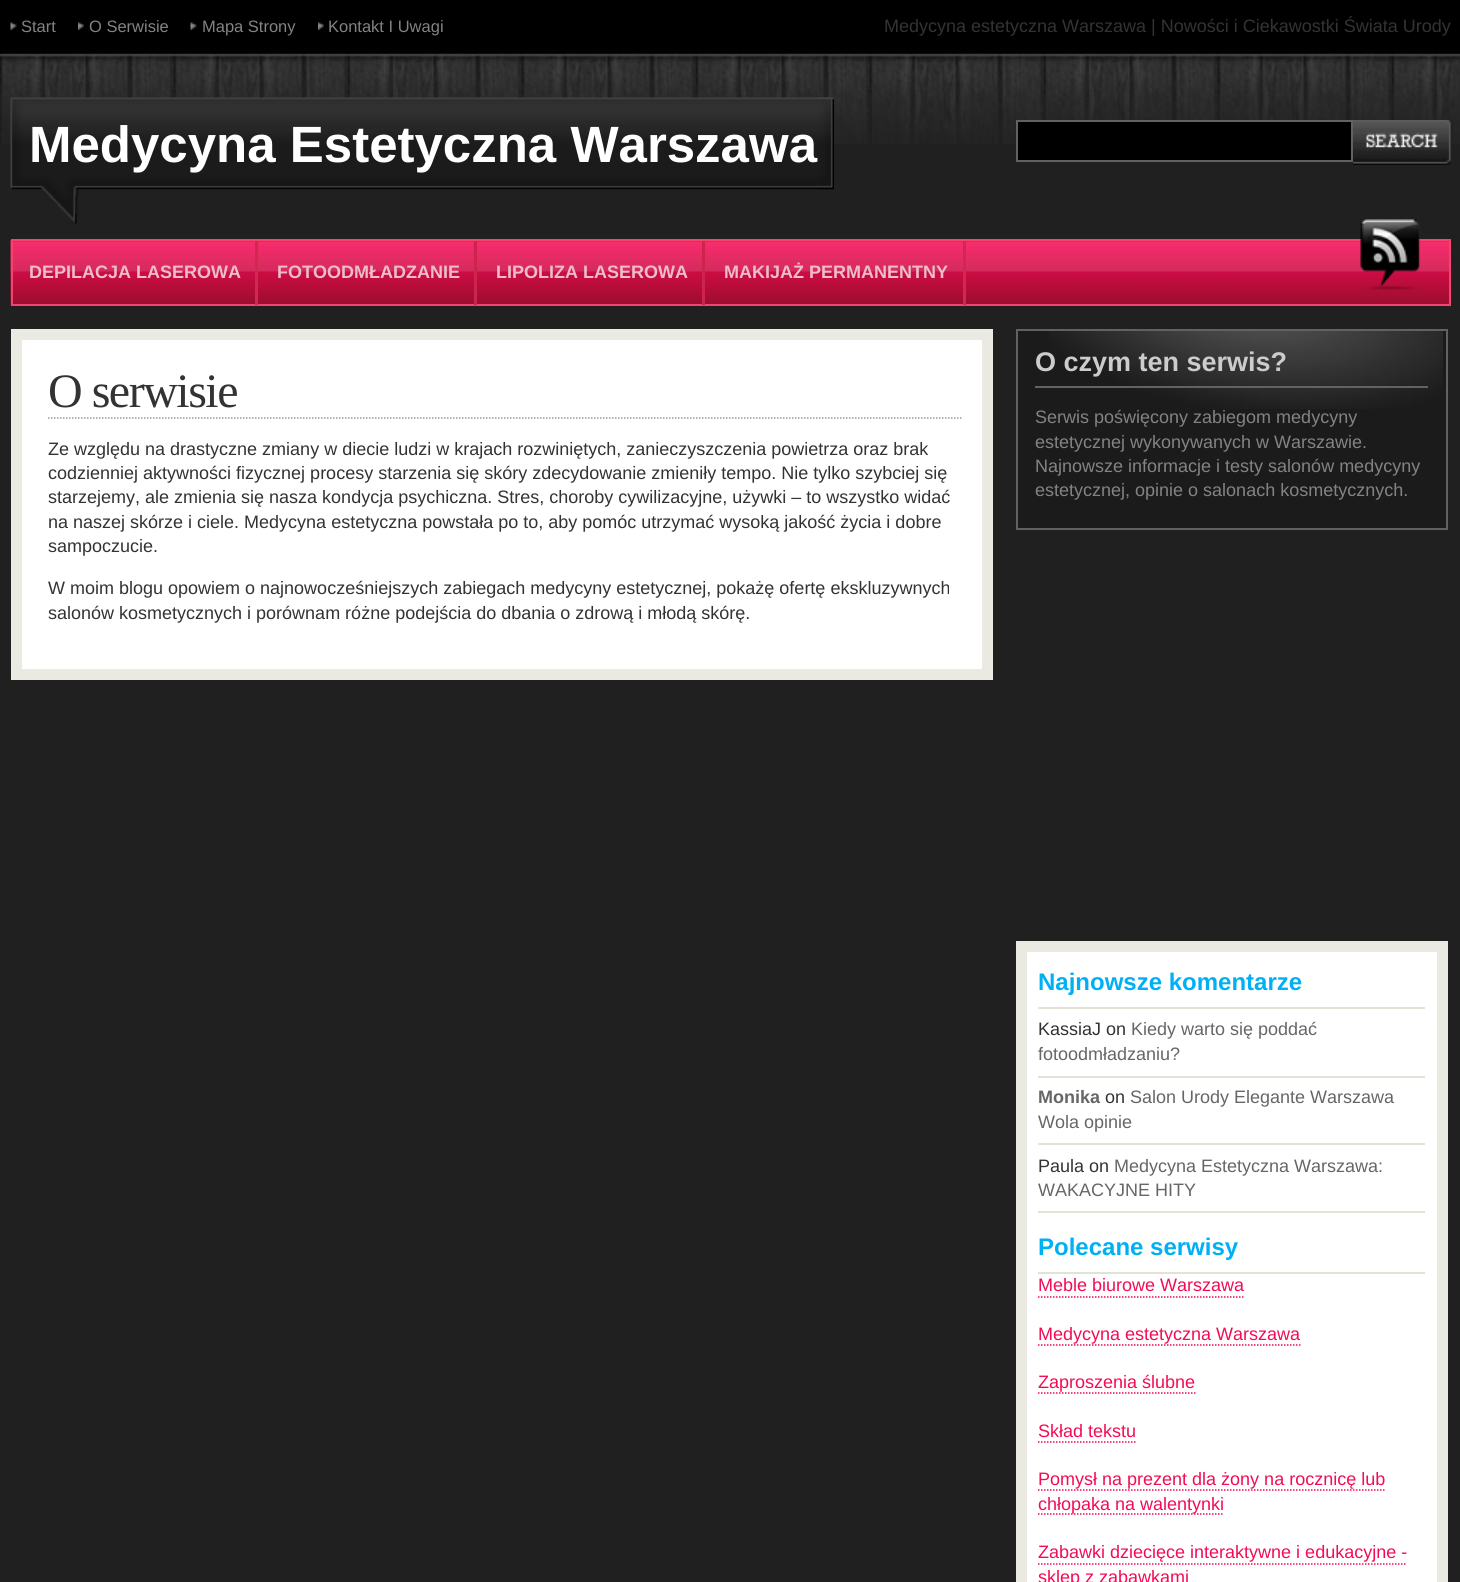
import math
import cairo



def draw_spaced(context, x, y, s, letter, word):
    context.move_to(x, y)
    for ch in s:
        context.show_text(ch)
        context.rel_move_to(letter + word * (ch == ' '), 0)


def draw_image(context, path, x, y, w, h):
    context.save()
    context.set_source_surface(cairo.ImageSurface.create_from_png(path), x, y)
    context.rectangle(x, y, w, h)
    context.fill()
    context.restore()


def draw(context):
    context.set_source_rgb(32 / 255, 32 / 255, 32 / 255)
    context.paint()
    draw_image(context, "images/1.png", 0, 0, 1460, 144)
    draw_image(context, "images/2.png", 10, 22, 7, 8)
    draw_image(context, "images/3.png", 78, 22, 6, 8)
    draw_image(context, "images/2.png", 190, 22, 7, 8)
    draw_image(context, "images/4.png", 318, 22, 6, 8)
    draw_image(context, "images/5.png", 10, 97, 824, 127)
    draw_image(context, "images/6.png", 818, 97, 16, 93)
    context.set_source_rgb(0, 0, 0)
    context.rectangle(1017, 121, 335, 40)
    context.fill_preserve()
    context.set_source_rgb(98 / 255, 98 / 255, 98 / 255)
    context.stroke()
    draw_image(context, "images/7.png", 1353, 120, 98, 45)
    draw_image(context, "images/8.png", 10, 240, 1439, 65)
    context.rectangle(12, 240, 1438, 65)
    context.set_source_rgb(245 / 255, 67 / 255, 110 / 255)
    context.stroke()
    context.set_source_rgb(208 / 255, 40 / 255, 81 / 255)
    context.rectangle(255, 241, 3, 64)
    context.fill()
    context.set_source_rgb(204 / 255, 36 / 255, 77 / 255)
    context.rectangle(474, 241, 3, 64)
    context.fill()
    context.rectangle(702, 241, 3, 64)
    context.fill()
    context.set_source_rgb(208 / 255, 40 / 255, 81 / 255)
    context.rectangle(963, 241, 3, 64)
    context.fill()
    draw_image(context, "images/9.png", 1360, 219, 61, 71)
    context.set_source_rgb(1, 1, 1)
    context.rectangle(16.5, 334.5, 971, 340)
    context.fill_preserve()
    context.set_source_rgb(234 / 255, 234 / 255, 227 / 255)
    context.set_line_width(11)
    context.stroke()
    context.new_path()
    context.move_to(48, 418)
    context.line_to(963, 418)
    context.set_source_rgb(153 / 255, 153 / 255, 153 / 255)
    context.set_line_width(1.5)
    context.set_dash([1.5, 1.5])
    context.stroke()
    context.set_source_rgb(27 / 255, 27 / 255, 27 / 255)
    context.rectangle(1018, 331, 428, 197)
    context.fill()
    draw_image(context, "images/10.png", 1049, 331, 394, 78)
    context.rectangle(1017, 330, 430, 199)
    context.set_source_rgb(98 / 255, 98 / 255, 98 / 255)
    context.set_line_width(2)
    context.set_dash([])
    context.stroke()
    context.rectangle(1035, 386, 393, 2)
    context.fill()
    context.set_source_rgb(1, 1, 1)
    context.rectangle(1021.5, 946.5, 421, 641)
    context.fill_preserve()
    context.set_source_rgb(234 / 255, 234 / 255, 227 / 255)
    context.set_line_width(11)
    context.stroke()
    context.set_source_rgb(226 / 255, 226 / 255, 216 / 255)
    context.rectangle(1038, 1007, 387, 2)
    context.fill()
    context.rectangle(1038, 1076, 387, 2)
    context.fill()
    context.rectangle(1038, 1143, 387, 2)
    context.fill()
    context.rectangle(1038, 1211, 387, 2)
    context.fill()
    context.rectangle(1038, 1272, 387, 2)
    context.fill()
    context.new_path()
    context.move_to(1038, 1297)
    context.line_to(1243.5, 1297)
    context.set_source_rgb(243 / 255, 12 / 255, 85 / 255)
    context.set_line_width(1.5)
    context.set_dash([1.5, 1.5])
    context.stroke()
    context.new_path()
    context.move_to(1038, 1345)
    context.line_to(1300.5, 1345)
    context.stroke()
    context.new_path()
    context.move_to(1038, 1393)
    context.line_to(1195.5, 1393)
    context.stroke()
    context.new_path()
    context.move_to(1038, 1442)
    context.line_to(1135.5, 1442)
    context.stroke()
    context.new_path()
    context.move_to(1038, 1490)
    context.line_to(1384.5, 1490)
    context.stroke()
    context.new_path()
    context.move_to(1038, 1514)
    context.line_to(1224, 1514)
    context.stroke()
    context.new_path()
    context.move_to(1038, 1564)
    context.line_to(1407, 1564)
    context.stroke()
    context.select_font_face("Liberation Sans")
    context.set_font_size(16.5)
    context.set_source_rgb(131 / 255, 131 / 255, 131 / 255)
    context.move_to(21, 32)
    context.show_text("Start")
    context.move_to(89, 32)
    context.show_text("O Serwisie")
    context.move_to(202, 32)
    context.show_text("Mapa Strony")
    context.move_to(328, 32)
    context.show_text("Kontakt I Uwagi")
    context.set_font_size(18)
    context.set_source_rgb(51 / 255, 51 / 255, 51 / 255)
    context.move_to(884, 32)
    context.show_text("Medycyna estetyczna Warszawa | Nowości i Ciekawostki Świata Urody")
    context.select_font_face("Liberation Sans", cairo.FontSlant.NORMAL, cairo.FontWeight.BOLD)
    context.set_font_size(51)
    context.set_source_rgb(1, 1, 1)
    context.move_to(29, 162)
    context.show_text("Medycyna Estetyczna Warszawa")
    context.set_font_size(18)
    context.set_source_rgb(239 / 255, 188 / 255, 202 / 255)
    context.move_to(29, 278)
    context.show_text("DEPILACJA LASEROWA")
    context.move_to(277, 278)
    context.show_text("FOTOODMŁADZANIE")
    context.move_to(496, 278)
    context.show_text("LIPOLIZA LASEROWA")
    context.move_to(724, 278)
    context.show_text("MAKIJAŻ PERMANENTNY")
    context.select_font_face("Liberation Serif")
    context.set_font_size(48)
    context.set_source_rgb(51 / 255, 51 / 255, 51 / 255)
    draw_spaced(context, 48, 407, "O serwisie", -1.5, 0)
    context.select_font_face("Liberation Sans")
    context.set_font_size(18)
    context.move_to(48, 455)
    context.show_text("Ze względu na drastyczne zmiany w diecie ludzi w krajach rozwiniętych, zanieczyszczenia powietrza oraz brak")
    context.move_to(48, 479)
    context.show_text("codzienniej aktywności fizycznej procesy starzenia się skóry zdecydowanie zmieniły tempo. Nie tylko szybciej się")
    context.move_to(48, 503)
    context.show_text("starzejemy, ale zmienia się nasza kondycja psychiczna. Stres, choroby cywilizacyjne, używki – to wszystko widać")
    context.move_to(48, 528)
    context.show_text("na naszej skórze i ciele. Medycyna estetyczna powstała po to, aby pomóc utrzymać wysoką jakość życia i dobre")
    context.move_to(48, 552)
    context.show_text("sampoczucie.")
    context.move_to(48, 594)
    context.show_text("W moim blogu opowiem o najnowocześniejszych zabiegach medycyny estetycznej, pokażę ofertę ekskluzywnych")
    context.move_to(48, 619)
    context.show_text("salonów kosmetycznych i porównam różne podejścia do dbania o zdrową i młodą skórę.")
    context.select_font_face("Liberation Sans", cairo.FontSlant.NORMAL, cairo.FontWeight.BOLD)
    context.set_font_size(27)
    context.set_source_rgb(204 / 255, 204 / 255, 204 / 255)
    context.move_to(1035, 371)
    context.show_text("O czym ten serwis?")
    context.select_font_face("Liberation Sans")
    context.set_font_size(18)
    context.set_source_rgb(131 / 255, 131 / 255, 131 / 255)
    context.move_to(1035, 423)
    context.show_text("Serwis poświęcony zabiegom medycyny")
    context.move_to(1035, 448)
    context.show_text("estetycznej wykonywanych w Warszawie.")
    context.move_to(1035, 472)
    context.show_text("Najnowsze informacje i testy salonów medycyny")
    context.move_to(1035, 496)
    context.show_text("estetycznej, opinie o salonach kosmetycznych.")
    context.select_font_face("Liberation Sans", cairo.FontSlant.NORMAL, cairo.FontWeight.BOLD)
    context.set_font_size(24)
    context.set_source_rgb(0, 176 / 255, 245 / 255)
    context.move_to(1038, 990)
    context.show_text("Najnowsze komentarze")
    context.select_font_face("Liberation Sans")
    context.set_font_size(18)
    context.set_source_rgb(51 / 255, 51 / 255, 51 / 255)
    context.move_to(1038, 1035)
    context.show_text("KassiaJ on")
    context.set_source_rgb(102 / 255, 102 / 255, 102 / 255)
    context.move_to(1131, 1035)
    context.show_text("Kiedy warto się poddać")
    context.move_to(1038, 1060)
    context.show_text("fotoodmładzaniu?")
    context.select_font_face("Liberation Sans", cairo.FontSlant.NORMAL, cairo.FontWeight.BOLD)
    context.move_to(1038, 1103)
    context.show_text("Monika")
    context.select_font_face("Liberation Sans")
    context.set_source_rgb(51 / 255, 51 / 255, 51 / 255)
    context.move_to(1105, 1103)
    context.show_text("on")
    context.set_source_rgb(102 / 255, 102 / 255, 102 / 255)
    context.move_to(1130, 1103)
    context.show_text("Salon Urody Elegante Warszawa")
    context.move_to(1038, 1128)
    context.show_text("Wola opinie")
    context.set_source_rgb(51 / 255, 51 / 255, 51 / 255)
    context.move_to(1038, 1172)
    context.show_text("Paula on")
    context.set_source_rgb(102 / 255, 102 / 255, 102 / 255)
    context.move_to(1114, 1172)
    context.show_text("Medycyna Estetyczna Warszawa:")
    context.move_to(1038, 1196)
    context.show_text("WAKACYJNE HITY")
    context.select_font_face("Liberation Sans", cairo.FontSlant.NORMAL, cairo.FontWeight.BOLD)
    context.set_font_size(24)
    context.set_source_rgb(0, 176 / 255, 245 / 255)
    context.move_to(1038, 1255)
    context.show_text("Polecane serwisy")
    context.select_font_face("Liberation Sans")
    context.set_font_size(18)
    context.set_source_rgb(243 / 255, 12 / 255, 85 / 255)
    context.move_to(1038, 1291)
    context.show_text("Meble biurowe Warszawa")
    context.move_to(1038, 1340)
    context.show_text("Medycyna estetyczna Warszawa")
    context.move_to(1038, 1388)
    context.show_text("Zaproszenia ślubne")
    context.move_to(1038, 1437)
    context.show_text("Skład tekstu")
    context.move_to(1038, 1485)
    context.show_text("Pomysł na prezent dla żony na rocznicę lub")
    context.move_to(1038, 1510)
    context.show_text("chłopaka na walentynki")
    context.move_to(1038, 1558)
    context.show_text("Zabawki dziecięce interaktywne i edukacyjne -")
    context.move_to(1038, 1583)
    context.show_text("sklep z zabawkami")


surface = cairo.ImageSurface(cairo.Format.RGB24, 1460, 1582)
context = cairo.Context(surface)
options = cairo.FontOptions()
options.set_hint_metrics(cairo.HintMetrics.OFF)
options.set_hint_style(cairo.HintStyle.NONE)
context.set_font_options(options)
context.set_miter_limit(4)
draw(context)
surface.write_to_png("out.png")
